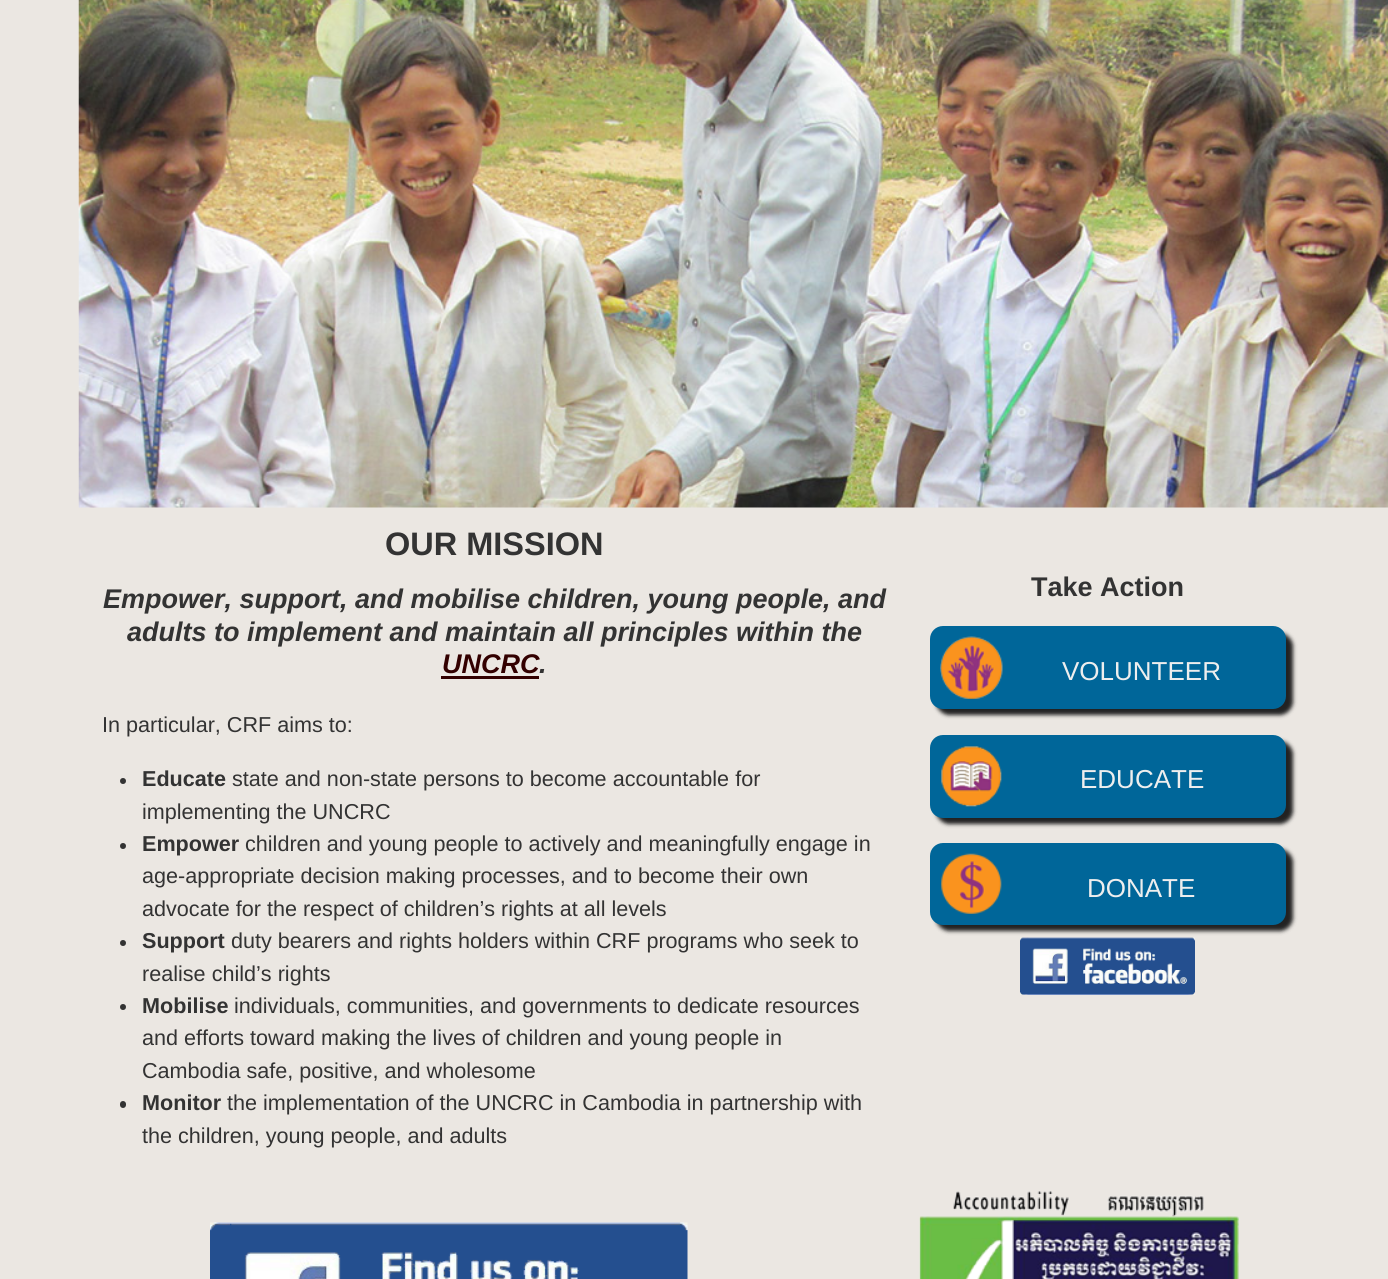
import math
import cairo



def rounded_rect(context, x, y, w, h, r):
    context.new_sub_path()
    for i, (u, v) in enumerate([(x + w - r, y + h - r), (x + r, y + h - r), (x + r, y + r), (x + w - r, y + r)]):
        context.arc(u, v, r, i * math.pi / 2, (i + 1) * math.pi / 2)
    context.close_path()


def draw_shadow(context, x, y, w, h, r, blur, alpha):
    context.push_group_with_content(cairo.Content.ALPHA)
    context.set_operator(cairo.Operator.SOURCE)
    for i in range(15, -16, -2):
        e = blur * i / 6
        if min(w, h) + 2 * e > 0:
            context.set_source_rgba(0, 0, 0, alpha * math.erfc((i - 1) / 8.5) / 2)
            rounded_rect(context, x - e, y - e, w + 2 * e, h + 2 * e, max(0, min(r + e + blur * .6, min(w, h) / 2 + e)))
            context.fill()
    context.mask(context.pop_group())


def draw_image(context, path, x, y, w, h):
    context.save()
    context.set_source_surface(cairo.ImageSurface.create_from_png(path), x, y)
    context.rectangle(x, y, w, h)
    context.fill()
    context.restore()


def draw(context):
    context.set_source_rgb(235 / 255, 231 / 255, 226 / 255)
    context.paint()
    draw_image(context, "images/1.png", 78, 0, 1310, 508)
    context.set_source_rgb(51 / 255, 0, 0)
    context.rectangle(441, 676, 98, 3)
    context.fill()
    context.set_source_rgb(51 / 255, 51 / 255, 51 / 255)
    context.arc(123, 781, 3, 0, 2 * math.pi)
    context.fill()
    context.arc(123, 846, 3, 0, 2 * math.pi)
    context.fill()
    context.arc(123, 943, 3, 0, 2 * math.pi)
    context.fill()
    context.arc(123, 1007, 3, 0, 2 * math.pi)
    context.fill()
    rounded_rect(context, 120, 1101, 6, 7, 3)
    context.fill()
    context.set_source_rgb(34 / 255, 34 / 255, 34 / 255)
    draw_shadow(context, 936, 633, 357, 82, 13, 2, 1)
    context.set_source_rgb(0, 102 / 255, 153 / 255)
    rounded_rect(context, 930, 626, 356, 83, 13)
    context.fill()
    draw_image(context, "images/2.png", 940, 636, 63, 63)
    context.set_source_rgb(34 / 255, 34 / 255, 34 / 255)
    draw_shadow(context, 936, 741, 357, 83, 13, 2, 1)
    context.set_source_rgb(0, 102 / 255, 153 / 255)
    rounded_rect(context, 930, 735, 356, 83, 13)
    context.fill()
    draw_image(context, "images/3.png", 941, 746, 61, 61)
    context.set_source_rgb(34 / 255, 34 / 255, 34 / 255)
    draw_shadow(context, 936, 849, 357, 82, 13, 2, 1)
    context.set_source_rgb(0, 102 / 255, 153 / 255)
    rounded_rect(context, 930, 843, 356, 82, 13)
    context.fill()
    draw_image(context, "images/4.png", 941, 853, 61, 61)
    draw_image(context, "images/5.png", 1020, 937, 175, 58)
    draw_image(context, "images/6.png", 210, 1222, 478, 57)
    draw_image(context, "images/7.png", 919, 1191, 320, 88)
    context.select_font_face("Liberation Sans", cairo.FontSlant.NORMAL, cairo.FontWeight.BOLD)
    context.set_font_size(32.5)
    context.set_source_rgb(51 / 255, 51 / 255, 51 / 255)
    context.move_to(385, 555)
    context.show_text("OUR MISSION")
    context.select_font_face("Liberation Sans", cairo.FontSlant.ITALIC, cairo.FontWeight.BOLD)
    context.set_font_size(27)
    context.move_to(103, 608)
    context.show_text("Empower, support, and mobilise children, young people, and")
    context.move_to(127, 641)
    context.show_text("adults to implement and maintain all principles within the")
    context.set_source_rgb(51 / 255, 0, 0)
    context.move_to(442, 673)
    context.show_text("UNCRC")
    context.set_source_rgb(51 / 255, 51 / 255, 51 / 255)
    context.move_to(539, 673)
    context.show_text(".")
    context.select_font_face("Liberation Sans")
    context.set_font_size(21.6)
    context.move_to(102, 732)
    context.show_text("In particular, CRF aims to:")
    context.select_font_face("Liberation Sans", cairo.FontSlant.NORMAL, cairo.FontWeight.BOLD)
    context.move_to(142, 786)
    context.show_text("Educate")
    context.select_font_face("Liberation Sans")
    context.move_to(232, 786)
    context.show_text("state and non-state persons to become accountable for")
    context.move_to(142, 819)
    context.show_text("implementing the UNCRC")
    context.select_font_face("Liberation Sans", cairo.FontSlant.NORMAL, cairo.FontWeight.BOLD)
    context.move_to(142, 851)
    context.show_text("Empower")
    context.select_font_face("Liberation Sans")
    context.move_to(245, 851)
    context.show_text("children and young people to actively and meaningfully engage in")
    context.move_to(142, 883)
    context.show_text("age-appropriate decision making processes, and to become their own")
    context.move_to(142, 916)
    context.show_text("advocate for the respect of children’s rights at all levels")
    context.select_font_face("Liberation Sans", cairo.FontSlant.NORMAL, cairo.FontWeight.BOLD)
    context.move_to(142, 948)
    context.show_text("Support")
    context.select_font_face("Liberation Sans")
    context.move_to(231, 948)
    context.show_text("duty bearers and rights holders within CRF programs who seek to")
    context.move_to(142, 981)
    context.show_text("realise child’s rights")
    context.select_font_face("Liberation Sans", cairo.FontSlant.NORMAL, cairo.FontWeight.BOLD)
    context.move_to(142, 1013)
    context.show_text("Mobilise")
    context.select_font_face("Liberation Sans")
    context.move_to(234, 1013)
    context.show_text("individuals, communities, and governments to dedicate resources")
    context.move_to(142, 1045)
    context.show_text("and efforts toward making the lives of children and young people in")
    context.move_to(142, 1078)
    context.show_text("Cambodia safe, positive, and wholesome")
    context.select_font_face("Liberation Sans", cairo.FontSlant.NORMAL, cairo.FontWeight.BOLD)
    context.move_to(142, 1110)
    context.show_text("Monitor")
    context.select_font_face("Liberation Sans")
    context.move_to(227, 1110)
    context.show_text("the implementation of the UNCRC in Cambodia in partnership with")
    context.move_to(142, 1143)
    context.show_text("the children, young people, and adults")
    context.select_font_face("Liberation Sans", cairo.FontSlant.NORMAL, cairo.FontWeight.BOLD)
    context.set_font_size(27)
    context.move_to(1031, 596)
    context.show_text("Take Action")
    context.select_font_face("Liberation Sans")
    context.set_font_size(26)
    context.set_source_rgb(238 / 255, 238 / 255, 238 / 255)
    context.move_to(1062, 680)
    context.show_text("VOLUNTEER")
    context.move_to(1080, 788)
    context.show_text("EDUCATE")
    context.move_to(1087, 897)
    context.show_text("DONATE")


surface = cairo.ImageSurface(cairo.Format.RGB24, 1388, 1279)
context = cairo.Context(surface)
options = cairo.FontOptions()
options.set_hint_metrics(cairo.HintMetrics.OFF)
options.set_hint_style(cairo.HintStyle.NONE)
context.set_font_options(options)
context.set_miter_limit(4)
draw(context)
surface.write_to_png("out.png")
